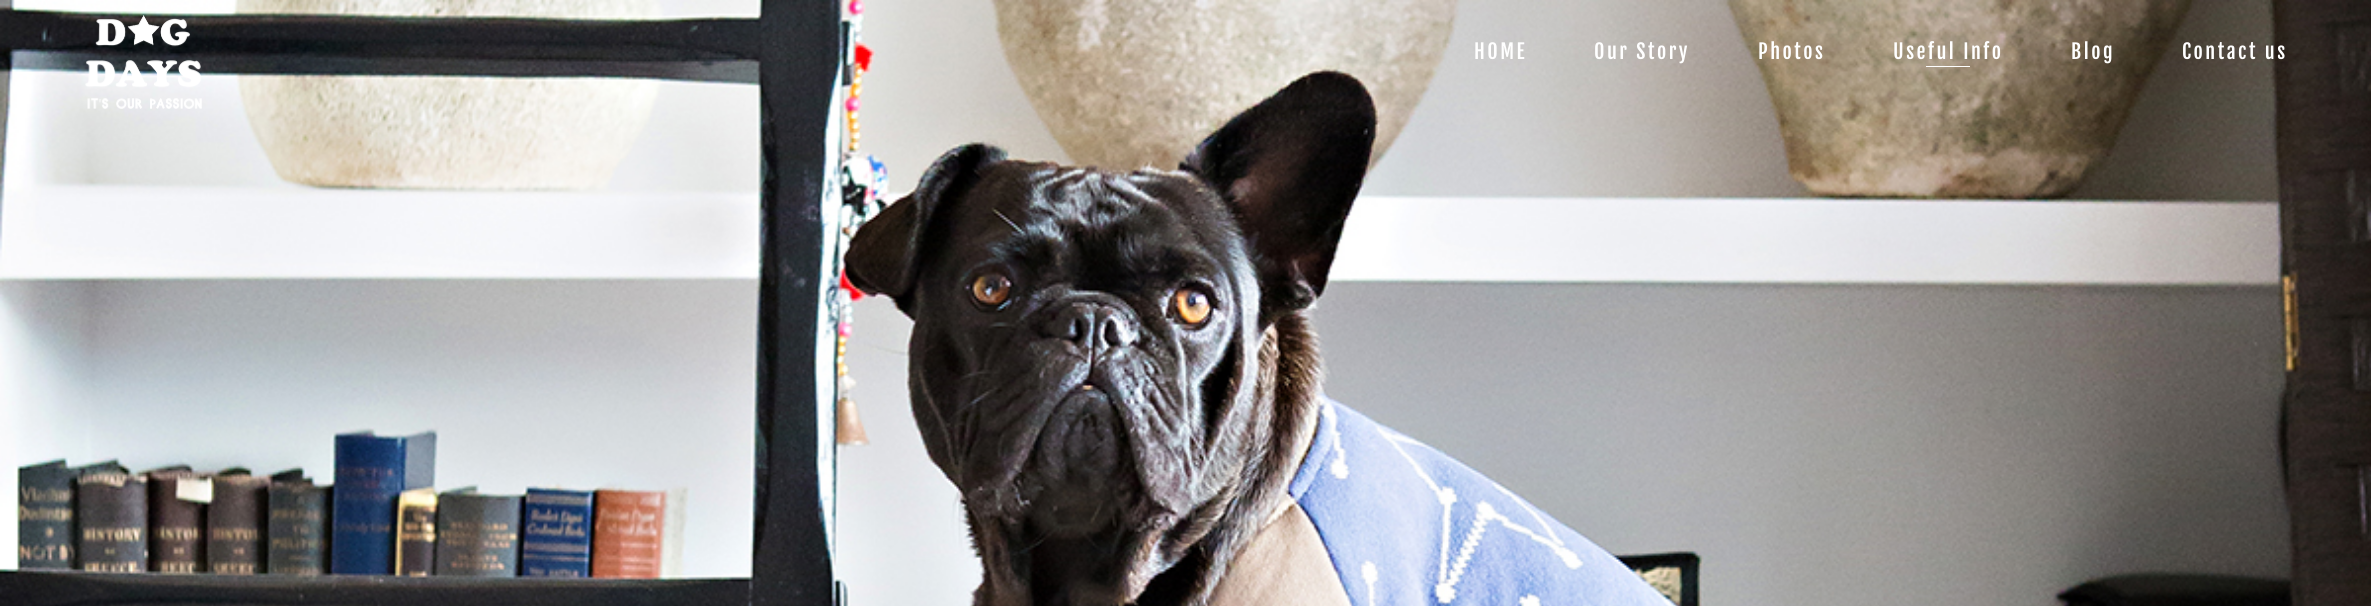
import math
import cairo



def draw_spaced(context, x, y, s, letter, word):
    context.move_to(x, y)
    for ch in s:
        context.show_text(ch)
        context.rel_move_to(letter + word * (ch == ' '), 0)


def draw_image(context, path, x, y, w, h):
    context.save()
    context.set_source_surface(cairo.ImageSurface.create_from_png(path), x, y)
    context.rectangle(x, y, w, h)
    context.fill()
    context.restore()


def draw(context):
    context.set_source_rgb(1, 1, 1)
    context.paint()
    draw_image(context, "images/1.png", 0, 0, 2371, 606)
    draw_image(context, "images/2.png", 85, 15, 117, 94)
    context.set_source_rgb(1, 1, 1)
    context.rectangle(1926, 66, 44, 1)
    context.fill()
    context.select_font_face("Fjalla One")
    context.set_font_size(20)
    draw_spaced(context, 1474, 59, "HOME", 2.5, 0)
    draw_spaced(context, 1594, 59, "Our Story", 2.5, 0)
    draw_spaced(context, 1758, 59, "Photos", 2.5, 0)
    draw_spaced(context, 1893, 59, "Useful Info", 2.5, 0)
    draw_spaced(context, 2071, 59, "Blog", 2.5, 0)
    draw_spaced(context, 2182, 59, "Contact us", 2.5, 0)


surface = cairo.ImageSurface(cairo.Format.RGB24, 2371, 606)
context = cairo.Context(surface)
options = cairo.FontOptions()
options.set_hint_metrics(cairo.HintMetrics.OFF)
options.set_hint_style(cairo.HintStyle.NONE)
context.set_font_options(options)
context.set_miter_limit(4)
draw(context)
surface.write_to_png("out.png")
